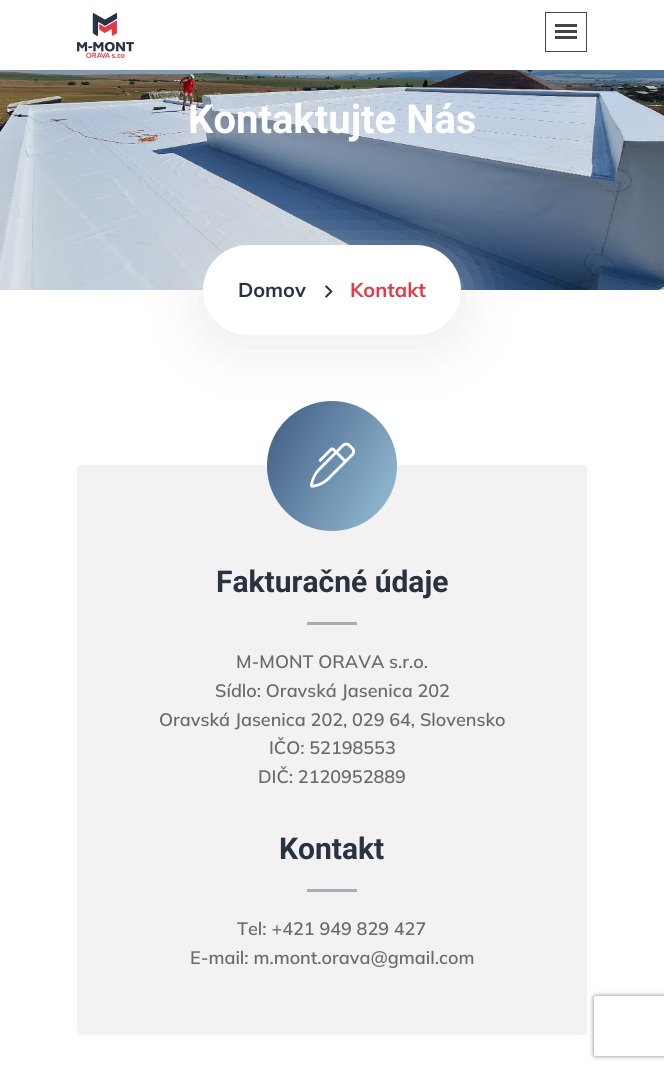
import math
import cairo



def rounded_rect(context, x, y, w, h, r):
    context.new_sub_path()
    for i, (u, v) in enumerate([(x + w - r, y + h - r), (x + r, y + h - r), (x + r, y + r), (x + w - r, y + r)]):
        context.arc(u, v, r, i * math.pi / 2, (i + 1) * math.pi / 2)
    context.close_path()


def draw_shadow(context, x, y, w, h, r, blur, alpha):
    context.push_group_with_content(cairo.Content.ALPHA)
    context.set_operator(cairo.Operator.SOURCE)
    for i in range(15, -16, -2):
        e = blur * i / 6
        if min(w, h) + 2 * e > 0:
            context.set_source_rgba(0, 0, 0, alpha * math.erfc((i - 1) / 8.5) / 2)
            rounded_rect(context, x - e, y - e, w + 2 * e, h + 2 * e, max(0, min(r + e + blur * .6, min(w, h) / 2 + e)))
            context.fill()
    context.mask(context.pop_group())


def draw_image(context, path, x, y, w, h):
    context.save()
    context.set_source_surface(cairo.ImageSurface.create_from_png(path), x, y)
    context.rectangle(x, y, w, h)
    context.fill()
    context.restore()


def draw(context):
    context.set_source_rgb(1, 1, 1)
    context.paint()
    draw_image(context, "images/2.png", 0, 70, 664, 220)
    context.set_source_rgb(25 / 255, 25 / 255, 25 / 255)
    draw_shadow(context, 0, 10, 664, 70, 0, 7.5, 0.1)
    context.set_source_rgb(1, 1, 1)
    context.rectangle(0, 1, 664, 69)
    context.fill()
    draw_image(context, "images/1.png", 77, 13, 57, 45)
    context.rectangle(545.5, 12.5, 41, 39)
    context.set_source_rgb(68 / 255, 68 / 255, 68 / 255)
    context.set_line_width(1)
    context.stroke()
    context.rectangle(555, 24, 22, 3)
    context.fill()
    context.rectangle(555, 30, 22, 3)
    context.fill()
    context.rectangle(555, 36, 22, 3)
    context.fill()
    context.set_source_rgb(221 / 255, 221 / 255, 221 / 255)
    draw_shadow(context, 203, 255, 258, 90, 45, 30, 0.57)
    context.set_source_rgb(1, 1, 1)
    rounded_rect(context, 203, 245, 258, 90, 45)
    context.fill()
    draw_image(context, "images/3.png", 325, 285, 8, 13)
    context.set_source_rgb(243 / 255, 241 / 255, 242 / 255)
    context.rectangle(77, 465, 510, 570)
    context.fill()
    gradient = cairo.LinearGradient(254, 425, 410, 507)
    gradient.add_color_stop_rgba(0, 61 / 255, 90 / 255, 128 / 255, 1)
    gradient.add_color_stop_rgba(0.99, 152 / 255, 193 / 255, 217 / 255, 1)
    context.set_source(gradient)
    context.arc(332, 466, 65, 0, 2 * math.pi)
    context.fill()
    draw_image(context, "images/4.png", 310, 442, 46, 46)
    context.set_source_rgb(171 / 255, 171 / 255, 182 / 255)
    context.rectangle(307, 622, 50, 3)
    context.fill()
    context.rectangle(307, 889, 50, 3)
    context.fill()
    context.save()
    context.set_fill_rule(cairo.FillRule.EVEN_ODD)
    context.new_path()
    context.move_to(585, 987)
    context.line_to(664, 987)
    context.line_to(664, 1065)
    context.line_to(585, 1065)
    context.close_path()
    context.move_to(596, 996)
    context.line_to(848, 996)
    context.curve_to(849, 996, 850, 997, 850, 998)
    context.line_to(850, 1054)
    context.curve_to(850, 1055, 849, 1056, 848, 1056)
    context.line_to(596, 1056)
    context.curve_to(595, 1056, 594, 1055, 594, 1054)
    context.line_to(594, 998)
    context.curve_to(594, 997, 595, 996, 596, 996)
    context.close_path()
    context.clip()
    context.set_source_rgb(128 / 255, 128 / 255, 128 / 255)
    draw_shadow(context, 594, 996, 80, 60, 2, 2.5, 1)
    context.restore()
    context.select_font_face("Roboto", cairo.FontSlant.NORMAL, cairo.FontWeight.BOLD)
    context.set_font_size(40)
    context.set_source_rgb(1, 1, 1)
    context.move_to(188, 133)
    context.show_text("Kontaktujte Nás")
    context.select_font_face("Mulish", cairo.FontSlant.NORMAL, cairo.FontWeight.BOLD)
    context.set_font_size(20)
    context.set_source_rgb(41 / 255, 50 / 255, 65 / 255)
    context.move_to(238, 297)
    context.show_text("Domov")
    context.set_source_rgb(230 / 255, 57 / 255, 70 / 255)
    context.move_to(350, 297)
    context.show_text("Kontakt")
    context.select_font_face("Roboto", cairo.FontSlant.NORMAL, cairo.FontWeight.BOLD)
    context.set_font_size(30)
    context.set_source_rgb(41 / 255, 50 / 255, 65 / 255)
    context.move_to(216, 592)
    context.show_text("Fakturačné údaje")
    context.select_font_face("Mulish SemiBold")
    context.set_font_size(18)
    context.set_source_rgb(106 / 255, 106 / 255, 106 / 255)
    context.move_to(236, 668)
    context.show_text("M-MONT ORAVA s.r.o.")
    context.move_to(215, 697)
    context.show_text("Sídlo: Oravská Jasenica 202")
    context.move_to(159, 726)
    context.show_text("Oravská Jasenica 202, 029 64, Slovensko")
    context.move_to(269, 754)
    context.show_text("IČO: 52198553")
    context.move_to(258, 783)
    context.show_text("DIČ: 2120952889")
    context.select_font_face("Roboto", cairo.FontSlant.NORMAL, cairo.FontWeight.BOLD)
    context.set_font_size(30)
    context.set_source_rgb(41 / 255, 50 / 255, 65 / 255)
    context.move_to(279, 859)
    context.show_text("Kontakt")
    context.select_font_face("Mulish SemiBold")
    context.set_font_size(18)
    context.set_source_rgb(106 / 255, 106 / 255, 106 / 255)
    context.move_to(237, 935)
    context.show_text("Tel: +421 949 829 427")
    context.move_to(190, 964)
    context.show_text("E-mail: m.mont.orava@gmail.com")


surface = cairo.ImageSurface(cairo.Format.RGB24, 664, 1070)
context = cairo.Context(surface)
options = cairo.FontOptions()
options.set_hint_metrics(cairo.HintMetrics.OFF)
options.set_hint_style(cairo.HintStyle.NONE)
context.set_font_options(options)
context.set_miter_limit(4)
draw(context)
surface.write_to_png("out.png")
